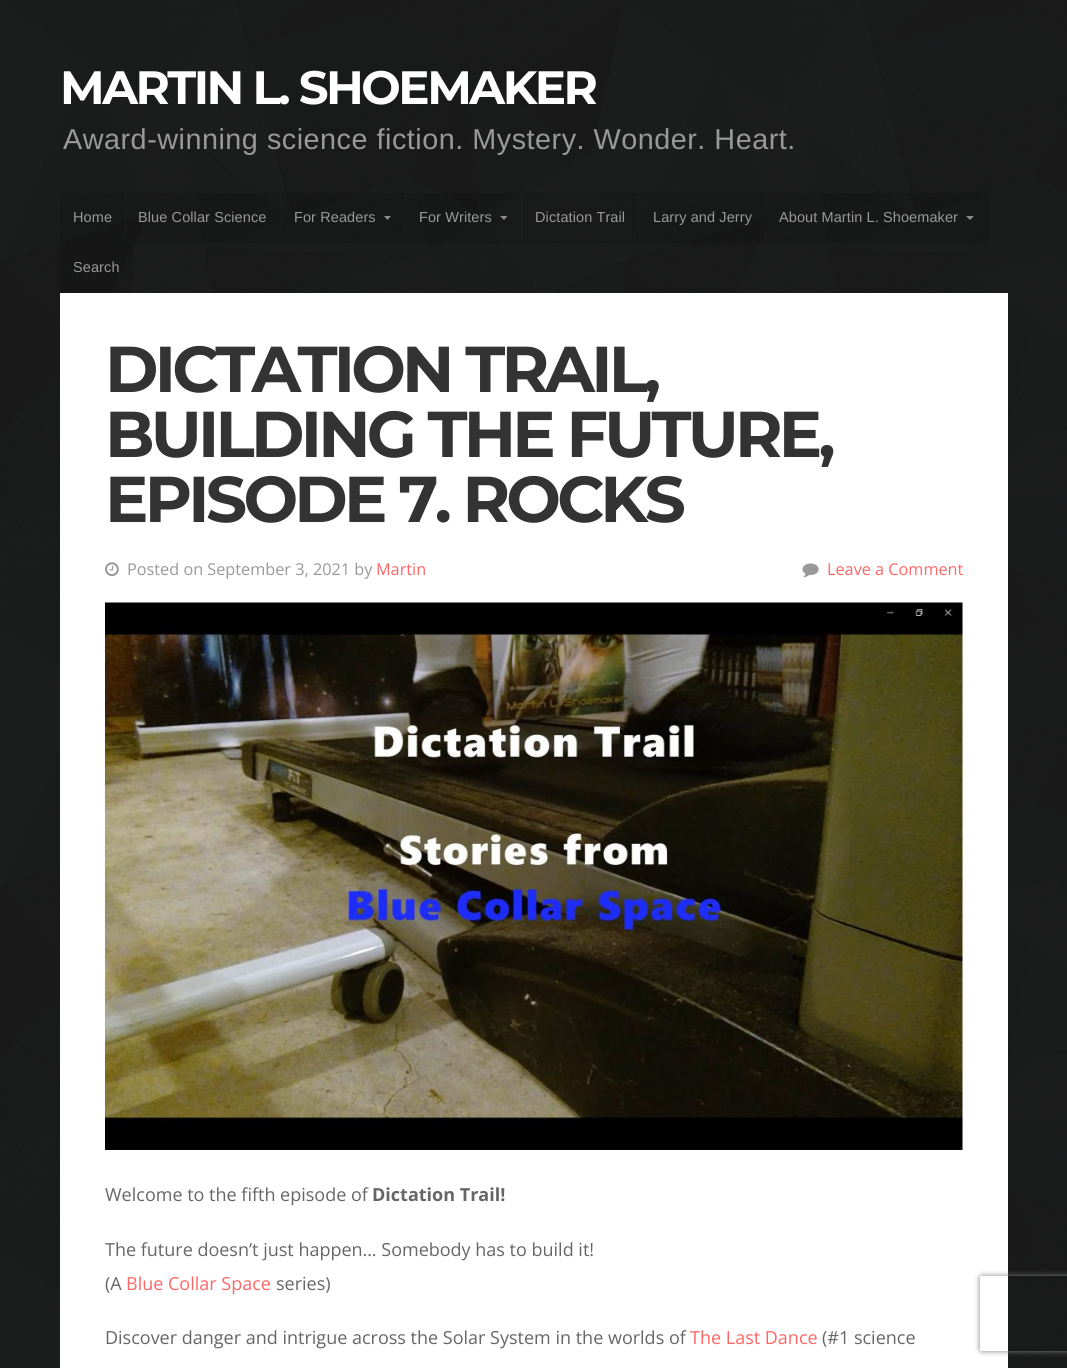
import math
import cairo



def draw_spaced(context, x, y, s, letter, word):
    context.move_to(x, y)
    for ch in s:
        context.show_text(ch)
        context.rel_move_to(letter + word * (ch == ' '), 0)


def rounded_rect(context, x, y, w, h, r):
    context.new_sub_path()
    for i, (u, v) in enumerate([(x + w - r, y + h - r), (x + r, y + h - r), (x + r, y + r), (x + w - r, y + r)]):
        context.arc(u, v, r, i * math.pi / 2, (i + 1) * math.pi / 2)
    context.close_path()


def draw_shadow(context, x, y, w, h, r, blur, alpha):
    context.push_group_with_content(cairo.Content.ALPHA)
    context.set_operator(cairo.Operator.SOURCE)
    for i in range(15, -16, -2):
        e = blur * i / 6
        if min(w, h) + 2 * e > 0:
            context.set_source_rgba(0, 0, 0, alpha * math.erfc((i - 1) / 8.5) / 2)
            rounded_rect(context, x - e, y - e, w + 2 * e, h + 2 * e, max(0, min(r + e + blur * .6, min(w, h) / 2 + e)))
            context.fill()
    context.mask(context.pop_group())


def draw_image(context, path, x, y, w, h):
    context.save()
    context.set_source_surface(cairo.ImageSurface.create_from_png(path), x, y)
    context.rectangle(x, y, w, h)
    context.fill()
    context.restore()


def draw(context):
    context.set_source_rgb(1, 1, 1)
    context.paint()
    draw_image(context, "images/1.png", 0, 0, 1067, 1368)
    context.set_source_rgba(0, 0, 0, 0.12)
    context.rectangle(60, 193, 65, 50)
    context.fill()
    context.rectangle(126, 193, 154, 50)
    context.fill()
    context.rectangle(281, 193, 124, 50)
    context.fill()
    context.set_source_rgb(139 / 255, 140 / 255, 140 / 255)
    context.new_path()
    context.move_to(384, 216)
    context.line_to(391, 216)
    context.line_to(387.5, 220)
    context.close_path()
    context.fill()
    context.set_source_rgba(0, 0, 0, 0.12)
    context.rectangle(406, 193, 115, 50)
    context.fill()
    context.set_source_rgb(140 / 255, 140 / 255, 140 / 255)
    context.new_path()
    context.move_to(500, 216)
    context.line_to(507.5, 216)
    context.line_to(504, 220)
    context.close_path()
    context.fill()
    context.set_source_rgba(0, 0, 0, 0.12)
    context.rectangle(523, 193, 116, 50)
    context.fill()
    context.rectangle(640, 193, 125, 50)
    context.fill()
    context.rectangle(766, 193, 223, 50)
    context.fill()
    context.set_source_rgb(139 / 255, 140 / 255, 140 / 255)
    context.new_path()
    context.move_to(966, 216)
    context.line_to(974, 216)
    context.line_to(970, 220)
    context.close_path()
    context.fill()
    context.set_source_rgba(0, 0, 0, 0.12)
    context.rectangle(60, 243, 73, 50)
    context.fill()
    context.set_source_rgb(1, 1, 1)
    context.rectangle(60, 293, 948, 1075)
    context.fill()
    draw_image(context, "images/2.png", 105, 562, 14, 15)
    draw_image(context, "images/3.png", 802, 563, 17, 15)
    draw_image(context, "images/4.png", 105, 602, 858, 548)
    context.save()
    context.set_fill_rule(cairo.FillRule.EVEN_ODD)
    context.new_path()
    context.move_to(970, 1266)
    context.line_to(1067, 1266)
    context.line_to(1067, 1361)
    context.line_to(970, 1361)
    context.close_path()
    context.move_to(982.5, 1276)
    context.line_to(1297.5, 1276)
    context.curve_to(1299, 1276, 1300, 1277, 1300, 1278.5)
    context.line_to(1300, 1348.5)
    context.curve_to(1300, 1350, 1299, 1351, 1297.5, 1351)
    context.line_to(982.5, 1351)
    context.curve_to(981, 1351, 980, 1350, 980, 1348.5)
    context.line_to(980, 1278.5)
    context.curve_to(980, 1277, 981, 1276, 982.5, 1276)
    context.close_path()
    context.clip()
    context.set_source_rgb(128 / 255, 128 / 255, 128 / 255)
    draw_shadow(context, 980, 1276, 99, 75, 2.5, 3, 1)
    context.restore()
    context.select_font_face("Montserrat", cairo.FontSlant.NORMAL, cairo.FontWeight.BOLD)
    context.set_font_size(46.75)
    draw_spaced(context, 60, 104, "MARTIN L. SHOEMAKER", -2.5, 0)
    context.select_font_face("Liberation Sans")
    context.set_font_size(28.8)
    context.set_source_rgb(153 / 255, 153 / 255, 153 / 255)
    draw_spaced(context, 63, 149, "Award-winning science fiction. Mystery. Wonder. Heart.", 0.5, 0)
    context.set_font_size(14.5)
    draw_spaced(context, 73, 222, "Home", 0.1, 0)
    draw_spaced(context, 138, 222, "Blue Collar Science", 0.1, 0)
    draw_spaced(context, 294, 222, "For Readers", 0.1, 0)
    draw_spaced(context, 419, 222, "For Writers", 0.1, 0)
    draw_spaced(context, 535, 222, "Dictation Trail", 0.1, 0)
    draw_spaced(context, 653, 222, "Larry and Jerry", 0.1, 0)
    draw_spaced(context, 779, 222, "About Martin L. Shoemaker", 0.1, 0)
    draw_spaced(context, 73, 272, "Search", 0.1, 0)
    context.select_font_face("Montserrat", cairo.FontSlant.NORMAL, cairo.FontWeight.BOLD)
    context.set_font_size(64.75)
    context.set_source_rgb(51 / 255, 51 / 255, 51 / 255)
    draw_spaced(context, 105, 392, "DICTATION TRAIL,", -3.75, 0)
    draw_spaced(context, 105, 457, "BUILDING THE FUTURE,", -3.75, 0)
    draw_spaced(context, 105, 522, "EPISODE 7. ROCKS", -3.75, 0)
    context.select_font_face("Open Sans")
    context.set_font_size(16.25)
    context.set_source_rgb(153 / 255, 153 / 255, 153 / 255)
    context.move_to(127, 575)
    context.show_text("Posted on September 3, 2021 by")
    context.set_source_rgb(1, 102 / 255, 102 / 255)
    context.move_to(376, 575)
    context.show_text("Martin")
    context.move_to(827, 575)
    context.show_text("Leave a Comment")
    context.set_font_size(18)
    context.set_source_rgb(102 / 255, 102 / 255, 102 / 255)
    context.move_to(105, 1201)
    context.show_text("Welcome to the fifth episode of")
    context.select_font_face("Open Sans", cairo.FontSlant.NORMAL, cairo.FontWeight.BOLD)
    context.move_to(372, 1201)
    context.show_text("Dictation Trail!")
    context.select_font_face("Open Sans")
    context.move_to(105, 1256)
    context.show_text("The future doesn’t just happen… Somebody has to build it!")
    context.move_to(105, 1290)
    context.show_text("(A")
    context.set_source_rgb(1, 102 / 255, 102 / 255)
    context.move_to(126, 1290)
    context.show_text("Blue Collar Space")
    context.set_source_rgb(102 / 255, 102 / 255, 102 / 255)
    context.move_to(276, 1290)
    context.show_text("series)")
    context.move_to(105, 1344)
    context.show_text("Discover danger and intrigue across the Solar System in the worlds of")
    context.set_source_rgb(1, 102 / 255, 102 / 255)
    context.move_to(690, 1344)
    context.show_text("The Last Dance")
    context.set_source_rgb(102 / 255, 102 / 255, 102 / 255)
    context.move_to(822, 1344)
    context.show_text("(#1 science")


surface = cairo.ImageSurface(cairo.Format.RGB24, 1067, 1368)
context = cairo.Context(surface)
options = cairo.FontOptions()
options.set_hint_metrics(cairo.HintMetrics.OFF)
options.set_hint_style(cairo.HintStyle.NONE)
context.set_font_options(options)
context.set_miter_limit(4)
draw(context)
surface.write_to_png("out.png")
